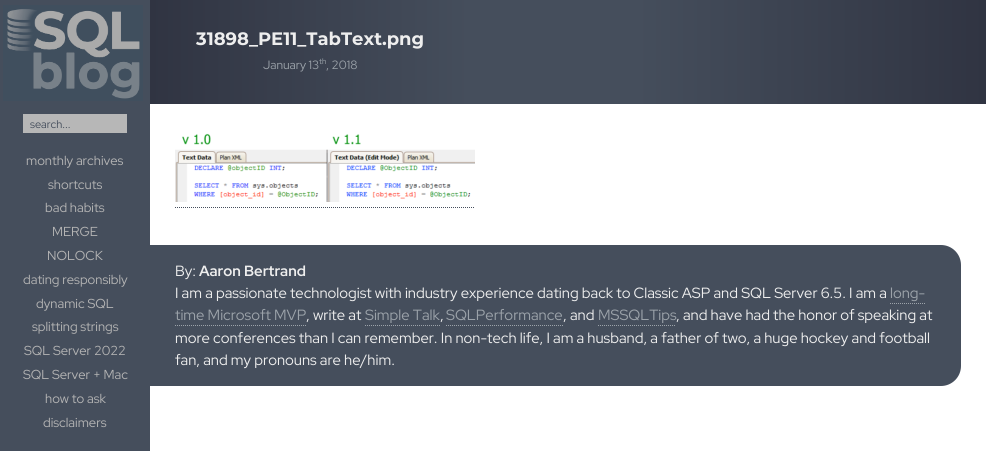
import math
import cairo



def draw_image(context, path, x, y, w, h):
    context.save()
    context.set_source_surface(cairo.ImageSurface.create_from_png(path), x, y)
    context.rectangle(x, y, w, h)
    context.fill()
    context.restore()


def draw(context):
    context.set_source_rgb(1, 1, 1)
    context.paint()
    context.set_source_rgb(69 / 255, 78 / 255, 92 / 255)
    context.rectangle(0, 0, 150, 451)
    context.fill()
    draw_image(context, "images/1.png", 3, 5, 140, 96)
    context.set_source_rgb(183 / 255, 183 / 255, 183 / 255)
    context.rectangle(23, 114, 104, 19)
    context.fill()
    gradient = cairo.LinearGradient(470, 52, 150, 52)
    gradient.add_color_stop_rgba(0, 69 / 255, 78 / 255, 92 / 255, 1)
    gradient.add_color_stop_rgba(1, 48 / 255, 52 / 255, 66 / 255, 1)
    context.set_source(gradient)
    context.rectangle(150, 0, 320, 104)
    context.fill()
    context.set_source_rgb(69 / 255, 78 / 255, 92 / 255)
    context.rectangle(470, 0, 166, 104)
    context.fill()
    gradient = cairo.LinearGradient(636, 52, 986, 52)
    gradient.add_color_stop_rgba(0, 69 / 255, 78 / 255, 92 / 255, 1)
    gradient.add_color_stop_rgba(1, 48 / 255, 52 / 255, 66 / 255, 1)
    context.set_source(gradient)
    context.rectangle(636, 0, 350, 104)
    context.fill()
    draw_image(context, "images/2.png", 175, 133, 300, 69)
    context.new_path()
    context.move_to(175, 207.5)
    context.line_to(475, 207.5)
    context.set_source_rgb(69 / 255, 78 / 255, 92 / 255)
    context.set_line_width(1)
    context.set_dash([1, 1])
    context.stroke()
    context.new_path()
    context.move_to(150, 245)
    context.line_to(941, 245)
    context.curve_to(952, 245, 961, 254, 961, 265)
    context.line_to(961, 366)
    context.curve_to(961, 377, 952, 386, 941, 386)
    context.line_to(150, 386)
    context.close_path()
    context.fill()
    context.new_path()
    context.move_to(890, 303.5)
    context.line_to(925, 303.5)
    context.set_source_rgb(156 / 255, 163 / 255, 170 / 255)
    context.stroke()
    context.new_path()
    context.move_to(175, 325.5)
    context.line_to(306, 325.5)
    context.stroke()
    context.new_path()
    context.move_to(365, 325.5)
    context.line_to(440, 325.5)
    context.stroke()
    context.new_path()
    context.move_to(446, 325.5)
    context.line_to(563, 325.5)
    context.stroke()
    context.new_path()
    context.move_to(598, 325.5)
    context.line_to(676, 325.5)
    context.stroke()
    context.select_font_face("Red Hat Display")
    context.set_font_size(11)
    context.set_source_rgb(69 / 255, 78 / 255, 92 / 255)
    context.move_to(30, 128)
    context.show_text("search...")
    context.set_font_size(13)
    context.set_source_rgb(180 / 255, 180 / 255, 180 / 255)
    context.move_to(26, 165)
    context.show_text("monthly archives")
    context.move_to(48, 189)
    context.show_text("shortcuts")
    context.move_to(45, 212)
    context.show_text("bad habits")
    context.move_to(52, 236)
    context.show_text("MERGE")
    context.move_to(47, 260)
    context.show_text("NOLOCK")
    context.move_to(23, 284)
    context.show_text("dating responsibly")
    context.move_to(36, 308)
    context.show_text("dynamic SQL")
    context.move_to(32, 331)
    context.show_text("splitting strings")
    context.move_to(24, 355)
    context.show_text("SQL Server 2022")
    context.move_to(23, 379)
    context.show_text("SQL Server + Mac")
    context.move_to(45, 403)
    context.show_text("how to ask")
    context.move_to(43, 427)
    context.show_text("disclaimers")
    context.select_font_face("Montserrat", cairo.FontSlant.NORMAL, cairo.FontWeight.BOLD)
    context.set_font_size(18)
    context.set_source_rgb(238 / 255, 238 / 255, 238 / 255)
    context.move_to(196, 45)
    context.show_text("31898_PE11_TabText.png")
    context.select_font_face("Red Hat Display")
    context.set_font_size(12)
    context.set_source_rgb(156 / 255, 163 / 255, 170 / 255)
    context.move_to(263, 69)
    context.show_text("January 13")
    context.set_font_size(8)
    context.move_to(319, 64)
    context.show_text("th")
    context.set_font_size(12)
    context.move_to(326, 69)
    context.show_text(", 2018")
    context.set_font_size(14.8)
    context.set_source_rgb(238 / 255, 238 / 255, 238 / 255)
    context.move_to(175, 276)
    context.show_text("By:")
    context.select_font_face("Red Hat Display", cairo.FontSlant.NORMAL, cairo.FontWeight.BOLD)
    context.move_to(199, 276)
    context.show_text("Aaron Bertrand")
    context.select_font_face("Red Hat Display")
    context.move_to(175, 298)
    context.show_text("I am a passionate technologist with industry experience dating back to Classic ASP and SQL Server 6.5. I am a")
    context.set_source_rgb(156 / 255, 163 / 255, 170 / 255)
    context.move_to(890, 298)
    context.show_text("long-")
    context.move_to(175, 320)
    context.show_text("time Microsoft MVP")
    context.set_source_rgb(238 / 255, 238 / 255, 238 / 255)
    context.move_to(306, 320)
    context.show_text(", write at")
    context.set_source_rgb(156 / 255, 163 / 255, 170 / 255)
    context.move_to(365, 320)
    context.show_text("Simple Talk")
    context.set_source_rgb(238 / 255, 238 / 255, 238 / 255)
    context.move_to(440, 320)
    context.show_text(",")
    context.set_source_rgb(156 / 255, 163 / 255, 170 / 255)
    context.move_to(446, 320)
    context.show_text("SQLPerformance")
    context.set_source_rgb(238 / 255, 238 / 255, 238 / 255)
    context.move_to(563, 320)
    context.show_text(", and")
    context.set_source_rgb(156 / 255, 163 / 255, 170 / 255)
    context.move_to(598, 320)
    context.show_text("MSSQLTips")
    context.set_source_rgb(238 / 255, 238 / 255, 238 / 255)
    context.move_to(676, 320)
    context.show_text(", and have had the honor of speaking at")
    context.move_to(175, 343)
    context.show_text("more conferences than I can remember. In non-tech life, I am a husband, a father of two, a huge hockey and football")
    context.move_to(175, 365)
    context.show_text("fan, and my pronouns are he/him.")


surface = cairo.ImageSurface(cairo.Format.RGB24, 986, 451)
context = cairo.Context(surface)
options = cairo.FontOptions()
options.set_hint_metrics(cairo.HintMetrics.OFF)
options.set_hint_style(cairo.HintStyle.NONE)
context.set_font_options(options)
context.set_miter_limit(4)
draw(context)
surface.write_to_png("out.png")
